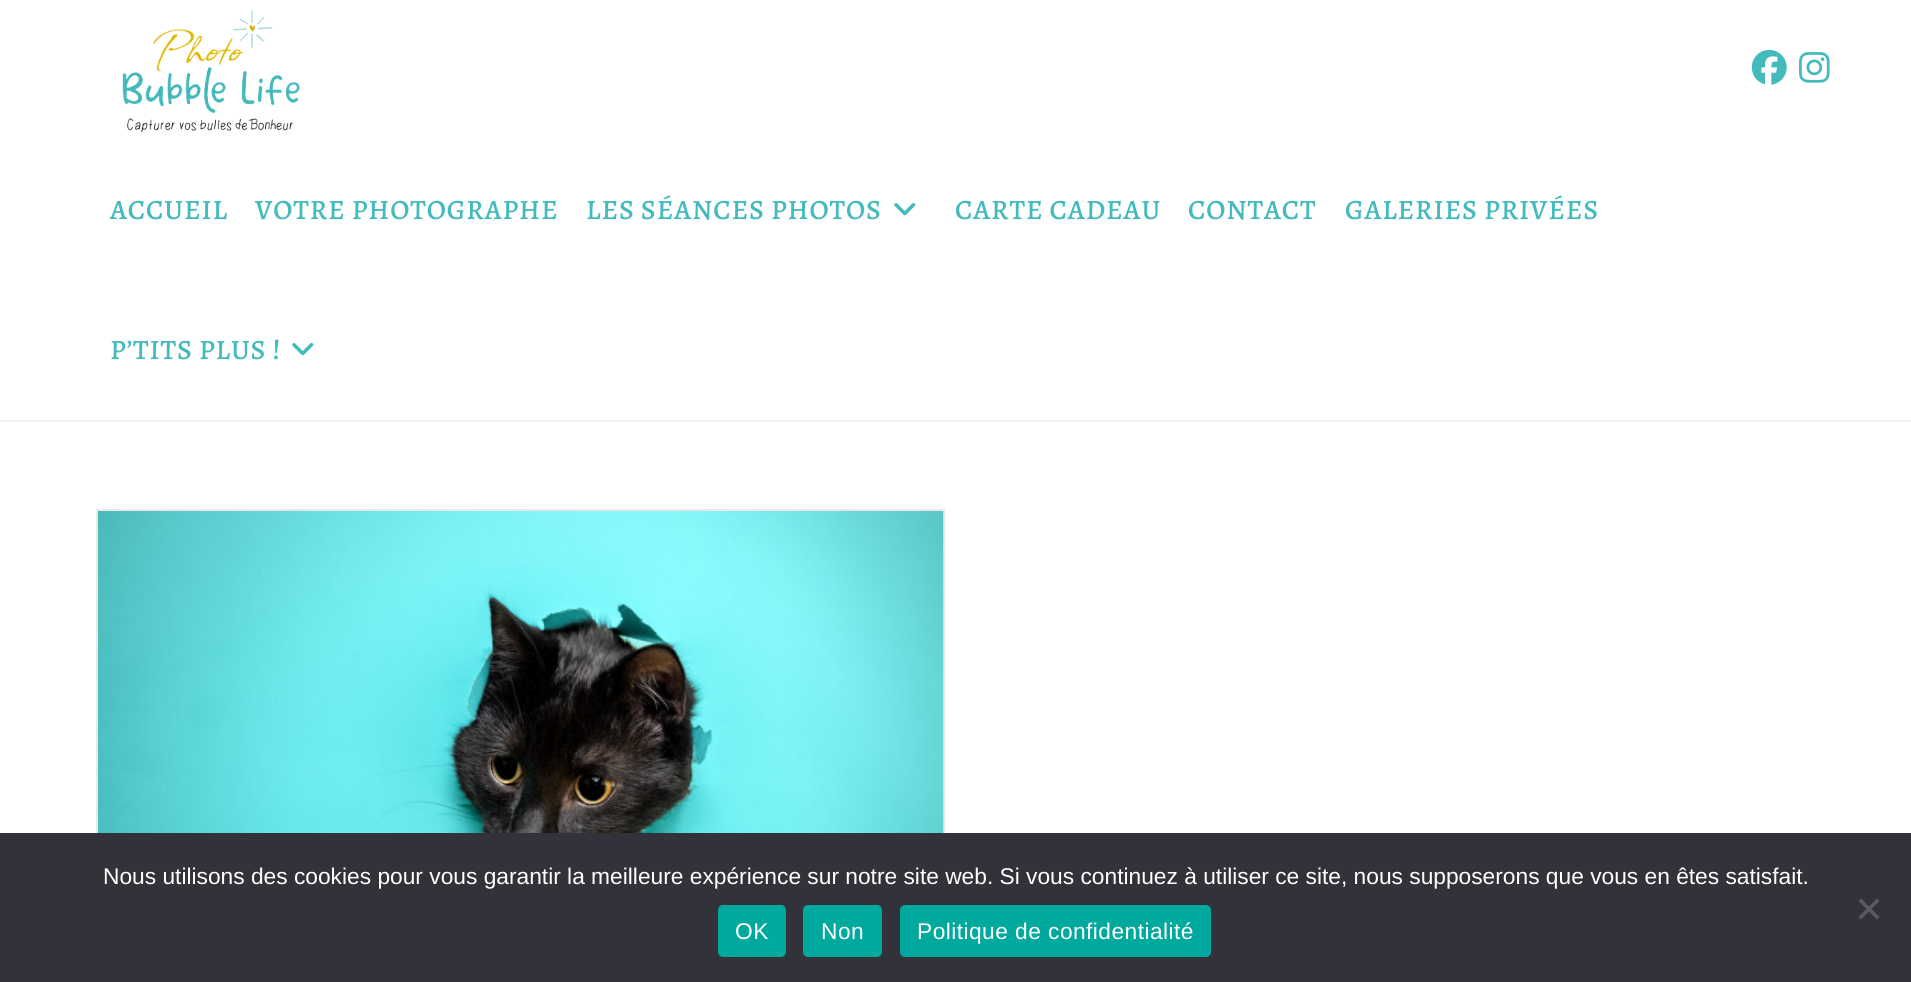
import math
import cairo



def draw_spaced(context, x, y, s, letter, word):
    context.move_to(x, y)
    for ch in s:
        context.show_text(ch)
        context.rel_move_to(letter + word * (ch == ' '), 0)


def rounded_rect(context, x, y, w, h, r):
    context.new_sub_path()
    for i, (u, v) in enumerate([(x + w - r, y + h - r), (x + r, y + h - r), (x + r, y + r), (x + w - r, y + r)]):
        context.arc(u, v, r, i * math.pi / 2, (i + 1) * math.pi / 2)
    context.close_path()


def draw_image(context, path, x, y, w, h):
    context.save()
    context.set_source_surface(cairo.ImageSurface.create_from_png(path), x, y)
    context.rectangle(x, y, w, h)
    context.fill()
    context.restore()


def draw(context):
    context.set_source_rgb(1, 1, 1)
    context.paint()
    context.set_source_rgb(241 / 255, 241 / 255, 241 / 255)
    context.rectangle(0, 420, 1911, 2)
    context.fill()
    draw_image(context, "images/1.png", 122, 10, 178, 123)
    draw_image(context, "images/2.png", 1751, 49, 36, 36)
    draw_image(context, "images/3.png", 1799, 52, 31, 31)
    draw_image(context, "images/4.png", 894, 203, 22, 13)
    draw_image(context, "images/4.png", 292, 343, 22, 13)
    context.rectangle(97, 510, 847, 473)
    context.set_source_rgb(233 / 255, 233 / 255, 233 / 255)
    context.stroke()
    draw_image(context, "images/5.png", 98, 511, 846, 322)
    context.set_source_rgb(50 / 255, 50 / 255, 58 / 255)
    context.rectangle(0, 833, 1911, 149)
    context.fill()
    context.set_source_rgb(89 / 255, 89 / 255, 93 / 255)
    context.new_path()
    context.move_to(1877, 898.5)
    context.line_to(1879.5, 901)
    context.line_to(1861, 919.5)
    context.line_to(1858.5, 917)
    context.close_path()
    context.fill()
    context.new_path()
    context.move_to(1858.5, 901)
    context.line_to(1861, 898.5)
    context.line_to(1879.5, 917)
    context.line_to(1877, 919.5)
    context.close_path()
    context.fill()
    context.set_source_rgb(0, 169 / 255, 157 / 255)
    rounded_rect(context, 718, 905, 68, 52, 5)
    context.fill()
    rounded_rect(context, 803, 905, 79, 52, 5)
    context.fill()
    rounded_rect(context, 900, 905, 311, 52, 5)
    context.fill()
    context.select_font_face("Alegreya Medium")
    context.set_font_size(28)
    context.set_source_rgb(67 / 255, 186 / 255, 188 / 255)
    draw_spaced(context, 110, 219, "ACCUEIL", 0.9, 0)
    draw_spaced(context, 255, 219, "VOTRE PHOTOGRAPHE", 0.9, 0)
    draw_spaced(context, 586, 219, "LES SÉANCES PHOTOS", 0.9, 0)
    draw_spaced(context, 955, 219, "CARTE CADEAU", 0.9, 0)
    draw_spaced(context, 1188, 219, "CONTACT", 0.9, 0)
    draw_spaced(context, 1345, 219, "GALERIES PRIVÉES", 0.9, 0)
    draw_spaced(context, 110, 359, "P’TITS PLUS !", 0.9, 0)
    context.select_font_face("Liberation Sans")
    context.set_font_size(22.75)
    context.set_source_rgb(1, 1, 1)
    context.move_to(103, 884)
    context.show_text("Nous utilisons des cookies pour vous garantir la meilleure expérience sur notre site web. Si vous continuez à utiliser ce site, nous supposerons que vous en êtes satisfait.")
    draw_spaced(context, 735, 939, "OK", 0.45, 0)
    draw_spaced(context, 821, 939, "Non", 0.45, 0)
    draw_spaced(context, 917, 939, "Politique de confidentialité", 0.45, 0)


surface = cairo.ImageSurface(cairo.Format.RGB24, 1911, 982)
context = cairo.Context(surface)
options = cairo.FontOptions()
options.set_hint_metrics(cairo.HintMetrics.OFF)
options.set_hint_style(cairo.HintStyle.NONE)
context.set_font_options(options)
context.set_miter_limit(4)
draw(context)
surface.write_to_png("out.png")
